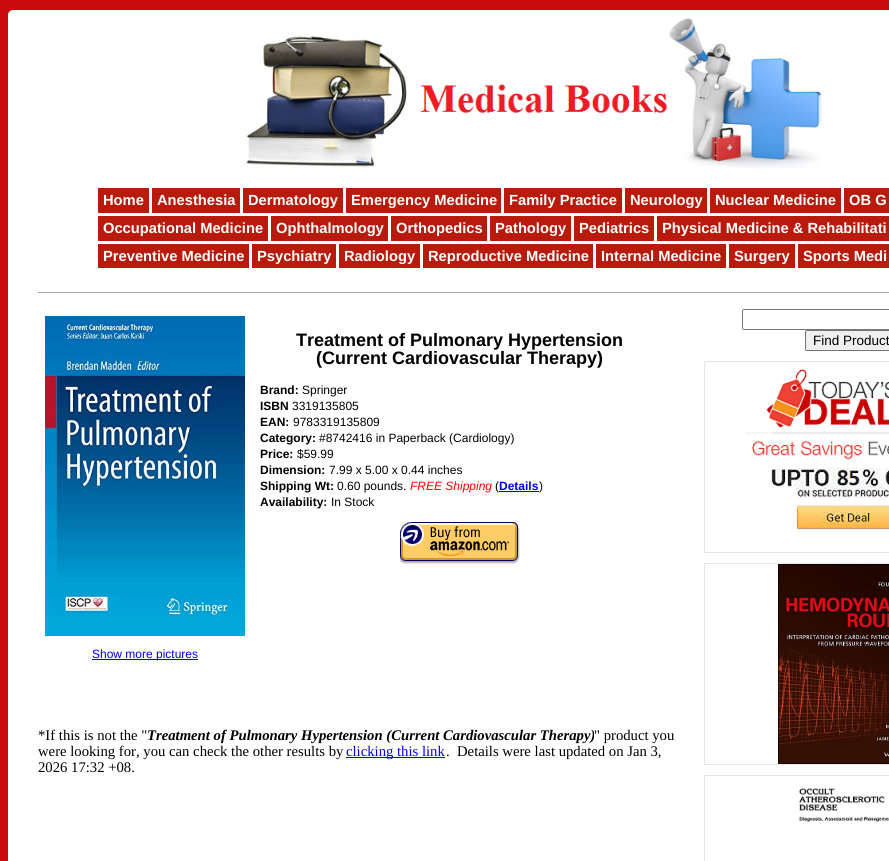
import math
import cairo



def rounded_rect(context, x, y, w, h, r):
    context.new_sub_path()
    for i, (u, v) in enumerate([(x + w - r, y + h - r), (x + r, y + h - r), (x + r, y + r), (x + w - r, y + r)]):
        context.arc(u, v, r, i * math.pi / 2, (i + 1) * math.pi / 2)
    context.close_path()


def draw_image(context, path, x, y, w, h):
    context.save()
    context.set_source_surface(cairo.ImageSurface.create_from_png(path), x, y)
    context.rectangle(x, y, w, h)
    context.fill()
    context.restore()


def draw(context):
    context.set_source_rgb(203 / 255, 10 / 255, 11 / 255)
    context.paint()
    context.set_source_rgb(1, 1, 1)
    rounded_rect(context, 8, 10, 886, 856, 5)
    context.fill()
    draw_image(context, "images/1.png", 245, 18, 577, 151)
    context.set_source_rgb(184 / 255, 27 / 255, 11 / 255)
    context.rectangle(98, 188, 51, 25)
    context.fill()
    context.rectangle(152, 188, 88, 25)
    context.fill()
    context.rectangle(243, 188, 100, 25)
    context.fill()
    context.rectangle(346, 188, 155, 25)
    context.fill()
    context.rectangle(504, 188, 118, 25)
    context.fill()
    context.rectangle(625, 188, 82, 25)
    context.fill()
    context.rectangle(710, 188, 131, 25)
    context.fill()
    context.rectangle(844, 188, 45, 25)
    context.fill()
    context.rectangle(98, 216, 170, 25)
    context.fill()
    context.rectangle(271, 216, 117, 25)
    context.fill()
    context.rectangle(391, 216, 96, 25)
    context.fill()
    context.rectangle(490, 216, 81, 25)
    context.fill()
    context.rectangle(574, 216, 80, 25)
    context.fill()
    context.rectangle(657, 216, 232, 25)
    context.fill()
    context.rectangle(98, 244, 151, 24)
    context.fill()
    context.rectangle(252, 244, 84, 24)
    context.fill()
    context.rectangle(339, 244, 81, 24)
    context.fill()
    context.rectangle(423, 244, 170, 24)
    context.fill()
    context.rectangle(596, 244, 130, 24)
    context.fill()
    context.rectangle(729, 244, 66, 24)
    context.fill()
    context.rectangle(798, 244, 91, 24)
    context.fill()
    context.set_source_rgb(169 / 255, 169 / 255, 169 / 255)
    context.rectangle(38, 292, 851, 1)
    context.fill()
    draw_image(context, "images/2.png", 400, 522, 120, 42)
    draw_image(context, "images/3.png", 45, 316, 200, 320)
    context.set_source_rgb(0, 0, 238 / 255)
    context.rectangle(92, 659, 106, 1)
    context.fill()
    context.rectangle(346, 757, 99, 1)
    context.fill()
    rounded_rect(context, 742.5, 309.5, 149, 20, 1.5)
    context.set_source_rgb(118 / 255, 118 / 255, 118 / 255)
    context.set_line_width(1)
    context.stroke()
    context.set_source_rgb(239 / 255, 239 / 255, 239 / 255)
    rounded_rect(context, 805.5, 330.5, 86, 20, 1.5)
    context.fill_preserve()
    context.set_source_rgb(118 / 255, 118 / 255, 118 / 255)
    context.stroke()
    context.rectangle(704.5, 361.5, 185, 191)
    context.set_source_rgb(230 / 255, 230 / 255, 230 / 255)
    context.stroke()
    draw_image(context, "images/4.png", 746, 369, 143, 161)
    context.rectangle(704.5, 563.5, 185, 201)
    context.stroke()
    draw_image(context, "images/5.png", 778, 564, 111, 200)
    context.rectangle(704.5, 775.5, 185, 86)
    context.stroke()
    draw_image(context, "images/6.png", 799, 788, 90, 36)
    context.select_font_face("Liberation Sans", cairo.FontSlant.NORMAL, cairo.FontWeight.BOLD)
    context.set_font_size(14.7)
    context.set_source_rgb(1, 1, 1)
    context.move_to(103, 205)
    context.show_text("Home")
    context.move_to(157, 205)
    context.show_text("Anesthesia")
    context.move_to(248, 205)
    context.show_text("Dermatology")
    context.move_to(351, 205)
    context.show_text("Emergency Medicine")
    context.move_to(509, 205)
    context.show_text("Family Practice")
    context.move_to(630, 205)
    context.show_text("Neurology")
    context.move_to(715, 205)
    context.show_text("Nuclear Medicine")
    context.move_to(849, 205)
    context.show_text("OB G")
    context.move_to(103, 233)
    context.show_text("Occupational Medicine")
    context.move_to(276, 233)
    context.show_text("Ophthalmology")
    context.move_to(396, 233)
    context.show_text("Orthopedics")
    context.move_to(495, 233)
    context.show_text("Pathology")
    context.move_to(579, 233)
    context.show_text("Pediatrics")
    context.move_to(662, 233)
    context.show_text("Physical Medicine & Rehabilitati")
    context.move_to(103, 261)
    context.show_text("Preventive Medicine")
    context.move_to(257, 261)
    context.show_text("Psychiatry")
    context.move_to(344, 261)
    context.show_text("Radiology")
    context.move_to(428, 261)
    context.show_text("Reproductive Medicine")
    context.move_to(601, 261)
    context.show_text("Internal Medicine")
    context.move_to(734, 261)
    context.show_text("Surgery")
    context.move_to(803, 261)
    context.show_text("Sports Medi")
    context.set_font_size(18)
    context.set_source_rgb(0, 0, 0)
    context.move_to(296, 346)
    context.show_text("Treatment of Pulmonary Hypertension")
    context.move_to(316, 364)
    context.show_text("(Current Cardiovascular Therapy)")
    context.set_font_size(12)
    context.move_to(260, 394)
    context.show_text("Brand:")
    context.select_font_face("Liberation Sans")
    context.move_to(302, 394)
    context.show_text("Springer")
    context.select_font_face("Liberation Sans", cairo.FontSlant.NORMAL, cairo.FontWeight.BOLD)
    context.move_to(260, 410)
    context.show_text("ISBN")
    context.select_font_face("Liberation Sans")
    context.move_to(292, 410)
    context.show_text("3319135805")
    context.select_font_face("Liberation Sans", cairo.FontSlant.NORMAL, cairo.FontWeight.BOLD)
    context.move_to(260, 426)
    context.show_text("EAN:")
    context.select_font_face("Liberation Sans")
    context.move_to(293, 426)
    context.show_text("9783319135809")
    context.select_font_face("Liberation Sans", cairo.FontSlant.NORMAL, cairo.FontWeight.BOLD)
    context.move_to(260, 442)
    context.show_text("Category:")
    context.select_font_face("Liberation Sans")
    context.move_to(319, 442)
    context.show_text("#8742416 in Paperback (Cardiology)")
    context.select_font_face("Liberation Sans", cairo.FontSlant.NORMAL, cairo.FontWeight.BOLD)
    context.move_to(260, 458)
    context.show_text("Price:")
    context.select_font_face("Liberation Sans")
    context.move_to(297, 458)
    context.show_text("$59.99")
    context.select_font_face("Liberation Sans", cairo.FontSlant.NORMAL, cairo.FontWeight.BOLD)
    context.move_to(260, 474)
    context.show_text("Dimension:")
    context.select_font_face("Liberation Sans")
    context.move_to(329, 474)
    context.show_text("7.99 x 5.00 x 0.44 inches")
    context.select_font_face("Liberation Sans", cairo.FontSlant.NORMAL, cairo.FontWeight.BOLD)
    context.move_to(260, 490)
    context.show_text("Shipping Wt:")
    context.select_font_face("Liberation Sans")
    context.move_to(337, 490)
    context.show_text("0.60 pounds.")
    context.select_font_face("Liberation Sans", cairo.FontSlant.ITALIC)
    context.set_source_rgb(1, 0, 0)
    context.move_to(410, 490)
    context.show_text("FREE Shipping")
    context.select_font_face("Liberation Sans")
    context.set_source_rgb(0, 0, 0)
    context.move_to(495, 490)
    context.show_text("(")
    context.select_font_face("Liberation Sans", cairo.FontSlant.NORMAL, cairo.FontWeight.BOLD)
    context.set_source_rgb(0, 0, 238 / 255)
    context.move_to(499, 490)
    context.show_text("Details")
    context.rectangle(499, 491, 40, 1)
    context.fill()
    context.select_font_face("Liberation Sans")
    context.set_source_rgb(0, 0, 0)
    context.move_to(539, 490)
    context.show_text(")")
    context.select_font_face("Liberation Sans", cairo.FontSlant.NORMAL, cairo.FontWeight.BOLD)
    context.move_to(260, 506)
    context.show_text("Availability:")
    context.select_font_face("Liberation Sans")
    context.move_to(331, 506)
    context.show_text("In Stock")
    context.set_source_rgb(0, 0, 238 / 255)
    context.move_to(92, 658)
    context.show_text("Show more pictures")
    context.select_font_face("Liberation Serif")
    context.set_font_size(14.7)
    context.set_source_rgb(0, 0, 0)
    context.move_to(38, 740)
    context.show_text("*If this is not the \"")
    context.select_font_face("Liberation Serif", cairo.FontSlant.ITALIC, cairo.FontWeight.BOLD)
    context.move_to(147, 740)
    context.show_text("Treatment of Pulmonary Hypertension (Current Cardiovascular Therapy)")
    context.select_font_face("Liberation Serif")
    context.move_to(594, 740)
    context.show_text("\" product you")
    context.move_to(38, 756)
    context.show_text("were looking for, you can check the other results by")
    context.set_source_rgb(0, 0, 238 / 255)
    context.move_to(346, 756)
    context.show_text("clicking this link")
    context.set_source_rgb(0, 0, 0)
    context.move_to(446, 756)
    context.show_text(".")
    context.move_to(457, 756)
    context.show_text("Details were last updated on Jan 3,")
    context.move_to(38, 772)
    context.show_text("2026 17:32 +08.")
    context.select_font_face("Liberation Sans")
    context.set_font_size(13.5)
    context.move_to(813, 345)
    context.show_text("Find Product")


surface = cairo.ImageSurface(cairo.Format.RGB24, 889, 861)
context = cairo.Context(surface)
options = cairo.FontOptions()
options.set_hint_metrics(cairo.HintMetrics.OFF)
options.set_hint_style(cairo.HintStyle.NONE)
context.set_font_options(options)
context.set_miter_limit(4)
draw(context)
surface.write_to_png("out.png")
